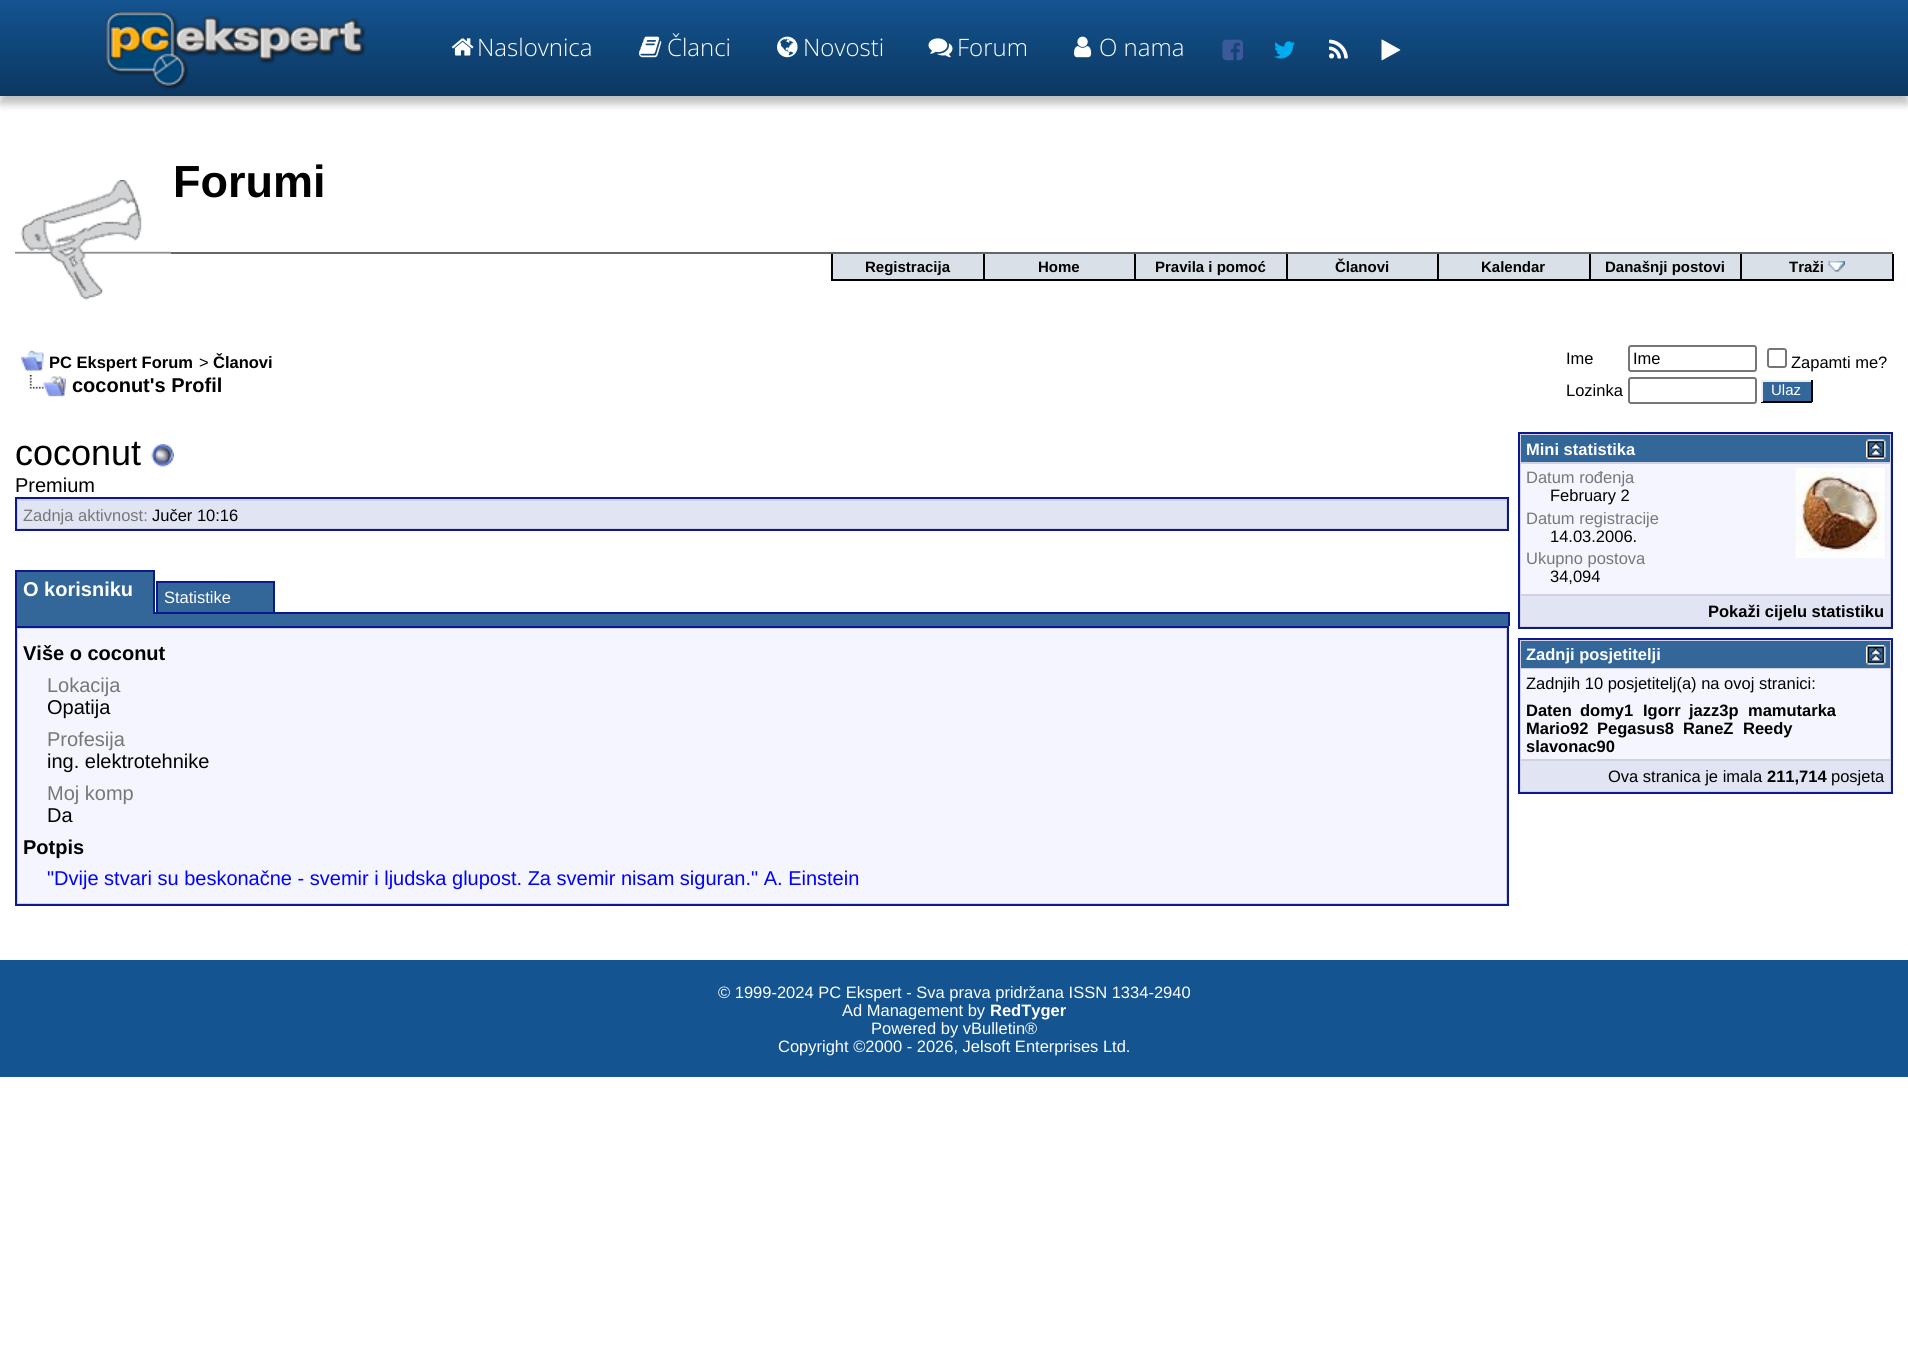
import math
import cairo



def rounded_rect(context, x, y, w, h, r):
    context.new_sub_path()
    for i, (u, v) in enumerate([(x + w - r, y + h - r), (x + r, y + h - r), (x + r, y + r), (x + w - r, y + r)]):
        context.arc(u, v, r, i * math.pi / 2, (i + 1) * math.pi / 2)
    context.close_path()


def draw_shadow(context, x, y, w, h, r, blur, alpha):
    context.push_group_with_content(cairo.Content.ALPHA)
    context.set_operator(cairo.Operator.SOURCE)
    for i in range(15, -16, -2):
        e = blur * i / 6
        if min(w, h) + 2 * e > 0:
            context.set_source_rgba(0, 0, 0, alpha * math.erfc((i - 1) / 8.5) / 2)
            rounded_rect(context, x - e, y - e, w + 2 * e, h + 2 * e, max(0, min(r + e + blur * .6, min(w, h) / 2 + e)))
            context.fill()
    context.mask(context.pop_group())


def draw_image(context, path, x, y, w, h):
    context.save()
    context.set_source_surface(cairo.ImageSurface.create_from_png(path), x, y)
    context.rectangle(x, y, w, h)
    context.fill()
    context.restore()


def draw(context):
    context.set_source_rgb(1, 1, 1)
    context.paint()
    context.set_source_rgb(0, 0, 0)
    draw_shadow(context, 0, 8, 1908, 96, 0, 4, 0.25)
    gradient = cairo.LinearGradient(954, 0, 954, 96)
    gradient.add_color_stop_rgba(0, 20 / 255, 84 / 255, 145 / 255, 1)
    gradient.add_color_stop_rgba(1, 12 / 255, 55 / 255, 96 / 255, 1)
    context.set_source(gradient)
    context.rectangle(0, 0, 1908, 96)
    context.fill()
    draw_image(context, "images/1.png", 105, 10, 261, 80)
    draw_image(context, "images/2.png", 451, 38, 23, 18)
    draw_image(context, "images/3.png", 639, 36, 23, 22)
    draw_image(context, "images/4.png", 777, 36, 21, 22)
    draw_image(context, "images/5.png", 928, 38, 25, 20)
    draw_image(context, "images/6.png", 1074, 36, 18, 22)
    draw_image(context, "images/7.png", 1222, 39, 21, 22)
    draw_image(context, "images/8.png", 1274, 41, 21, 18)
    draw_image(context, "images/9.png", 1329, 39, 19, 20)
    draw_image(context, "images/10.png", 1381, 39, 20, 22)
    draw_image(context, "images/11.png", 15, 180, 156, 120)
    context.set_source_rgb(102 / 255, 102 / 255, 102 / 255)
    context.rectangle(171, 252, 1722, 2)
    context.fill()
    context.set_source_rgb(0, 0, 0)
    context.rectangle(1892, 254, 2, 27)
    context.fill()
    context.set_source_rgb(218 / 255, 224 / 255, 232 / 255)
    context.rectangle(833, 254, 150, 25)
    context.fill()
    context.set_source_rgb(0, 0, 0)
    context.rectangle(831, 279, 1061, 2)
    context.fill()
    context.rectangle(831, 254, 2, 27)
    context.fill()
    context.set_source_rgb(218 / 255, 224 / 255, 232 / 255)
    context.rectangle(985, 254, 149, 25)
    context.fill()
    context.set_source_rgb(0, 0, 0)
    context.rectangle(983, 254, 2, 27)
    context.fill()
    context.set_source_rgb(218 / 255, 224 / 255, 232 / 255)
    context.rectangle(1136, 254, 150, 25)
    context.fill()
    context.set_source_rgb(0, 0, 0)
    context.rectangle(1134, 254, 2, 27)
    context.fill()
    context.set_source_rgb(218 / 255, 224 / 255, 232 / 255)
    context.rectangle(1288, 254, 149, 25)
    context.fill()
    context.set_source_rgb(0, 0, 0)
    context.rectangle(1286, 254, 2, 27)
    context.fill()
    context.set_source_rgb(218 / 255, 224 / 255, 232 / 255)
    context.rectangle(1439, 254, 150, 25)
    context.fill()
    context.set_source_rgb(0, 0, 0)
    context.rectangle(1437, 254, 2, 27)
    context.fill()
    context.set_source_rgb(218 / 255, 224 / 255, 232 / 255)
    context.rectangle(1591, 254, 149, 25)
    context.fill()
    context.set_source_rgb(0, 0, 0)
    context.rectangle(1589, 254, 2, 27)
    context.fill()
    context.set_source_rgb(218 / 255, 224 / 255, 232 / 255)
    context.rectangle(1742, 254, 150, 25)
    context.fill()
    context.set_source_rgb(0, 0, 0)
    context.rectangle(1740, 254, 2, 27)
    context.fill()
    draw_image(context, "images/12.png", 1828, 261, 17, 11)
    draw_image(context, "images/13.png", 21, 350, 23, 21)
    draw_image(context, "images/14.png", 29, 375, 37, 22)
    rounded_rect(context, 1629, 346, 127, 25, 2)
    context.set_source_rgb(118 / 255, 118 / 255, 118 / 255)
    context.stroke()
    rounded_rect(context, 1768, 349, 18, 18, 2)
    context.stroke()
    rounded_rect(context, 1629, 378, 127, 25, 2)
    context.stroke()
    context.set_source_rgb(51 / 255, 102 / 255, 153 / 255)
    context.rectangle(1763, 382, 48, 19)
    context.fill()
    context.set_source_rgb(238 / 255, 238 / 255, 238 / 255)
    context.rectangle(1761, 380, 51, 2)
    context.fill()
    context.set_source_rgb(0, 0, 0)
    context.rectangle(1811, 380, 2, 22)
    context.fill()
    context.rectangle(1761, 401, 51, 2)
    context.fill()
    context.set_source_rgb(238 / 255, 238 / 255, 238 / 255)
    context.rectangle(1761, 380, 2, 22)
    context.fill()
    draw_image(context, "images/15.png", 151, 444, 23, 23)
    context.set_source_rgb(209 / 255, 209 / 255, 225 / 255)
    context.rectangle(16, 498, 1492, 32)
    context.fill_preserve()
    context.set_source_rgb(11 / 255, 25 / 255, 140 / 255)
    context.stroke()
    context.set_source_rgb(225 / 255, 228 / 255, 242 / 255)
    context.rectangle(18, 501, 1488, 27)
    context.fill()
    context.set_source_rgb(51 / 255, 102 / 255, 153 / 255)
    context.rectangle(17, 572, 136, 42)
    context.fill()
    context.set_source_rgb(11 / 255, 25 / 255, 140 / 255)
    context.rectangle(15, 570, 140, 2)
    context.fill()
    context.rectangle(153, 570, 2, 44)
    context.fill()
    context.rectangle(15, 612, 2, 14)
    context.fill()
    context.rectangle(15, 570, 2, 44)
    context.fill()
    context.rectangle(155, 612, 1354, 2)
    context.fill()
    context.set_source_rgb(51 / 255, 102 / 255, 153 / 255)
    context.rectangle(157, 582, 117, 31)
    context.fill_preserve()
    context.set_source_rgb(11 / 255, 25 / 255, 140 / 255)
    context.stroke()
    context.set_source_rgb(51 / 255, 102 / 255, 153 / 255)
    context.rectangle(17, 614, 1491, 12)
    context.fill()
    context.set_source_rgb(11 / 255, 25 / 255, 140 / 255)
    context.rectangle(1508, 612, 2, 14)
    context.fill()
    context.set_source_rgb(209 / 255, 209 / 255, 225 / 255)
    context.rectangle(16, 627, 1492, 278)
    context.fill_preserve()
    context.set_source_rgb(11 / 255, 25 / 255, 140 / 255)
    context.stroke()
    context.set_source_rgb(245 / 255, 245 / 255, 1)
    context.rectangle(18, 629, 1488, 274)
    context.fill()
    context.set_source_rgb(209 / 255, 209 / 255, 225 / 255)
    context.rectangle(1519, 433, 373, 195)
    context.fill_preserve()
    context.set_source_rgb(11 / 255, 25 / 255, 140 / 255)
    context.stroke()
    context.set_source_rgb(51 / 255, 102 / 255, 153 / 255)
    context.rectangle(1521, 435, 369, 27)
    context.fill()
    draw_image(context, "images/16.png", 1866, 439, 20, 20)
    context.set_source_rgb(245 / 255, 245 / 255, 1)
    context.rectangle(1521, 464, 369, 130)
    context.fill()
    context.set_source_rgb(225 / 255, 228 / 255, 242 / 255)
    context.rectangle(1885, 468, 1, 90)
    context.fill()
    draw_image(context, "images/17.png", 1795, 468, 91, 90)
    context.rectangle(1521, 596, 369, 30)
    context.fill()
    context.set_source_rgb(209 / 255, 209 / 255, 225 / 255)
    context.rectangle(1519, 639, 373, 154)
    context.fill_preserve()
    context.set_source_rgb(11 / 255, 25 / 255, 140 / 255)
    context.stroke()
    context.set_source_rgb(51 / 255, 102 / 255, 153 / 255)
    context.rectangle(1521, 641, 369, 27)
    context.fill()
    draw_image(context, "images/18.png", 1866, 645, 20, 20)
    context.set_source_rgb(245 / 255, 245 / 255, 1)
    context.rectangle(1521, 669, 369, 90)
    context.fill()
    context.set_source_rgb(225 / 255, 228 / 255, 242 / 255)
    context.rectangle(1521, 761, 369, 30)
    context.fill()
    context.set_source_rgb(20 / 255, 84 / 255, 145 / 255)
    context.rectangle(0, 960, 1908, 117)
    context.fill()
    context.select_font_face("Open Sans Light")
    context.set_font_size(24)
    context.set_source_rgb(1, 1, 1)
    context.move_to(477, 56)
    context.show_text("Naslovnica")
    context.move_to(667, 56)
    context.show_text("Članci")
    context.move_to(803, 56)
    context.show_text("Novosti")
    context.move_to(957, 56)
    context.show_text("Forum")
    context.move_to(1099, 56)
    context.show_text("O nama")
    context.select_font_face("Liberation Sans", cairo.FontSlant.NORMAL, cairo.FontWeight.BOLD)
    context.set_font_size(45)
    context.set_source_rgb(0, 0, 0)
    context.move_to(173, 197)
    context.show_text("Forumi")
    context.set_font_size(15)
    context.move_to(865, 272)
    context.show_text("Registracija")
    context.move_to(1038, 272)
    context.show_text("Home")
    context.move_to(1155, 272)
    context.show_text("Pravila i pomoć")
    context.move_to(1335, 272)
    context.show_text("Članovi")
    context.move_to(1481, 272)
    context.show_text("Kalendar")
    context.move_to(1605, 272)
    context.show_text("Današnji postovi")
    context.move_to(1789, 272)
    context.show_text("Traži")
    context.set_font_size(16.5)
    context.move_to(49, 368)
    context.show_text("PC Ekspert Forum")
    context.select_font_face("Liberation Sans")
    context.move_to(199, 368)
    context.show_text(">")
    context.select_font_face("Liberation Sans", cairo.FontSlant.NORMAL, cairo.FontWeight.BOLD)
    context.move_to(213, 368)
    context.show_text("Članovi")
    context.set_font_size(20)
    context.move_to(72, 392)
    context.show_text("coconut's Profil")
    context.select_font_face("Liberation Sans")
    context.set_font_size(16.5)
    context.move_to(1566, 364)
    context.show_text("Ime")
    context.move_to(1633, 364)
    context.show_text("Ime")
    context.move_to(1791, 368)
    context.show_text("Zapamti me?")
    context.move_to(1566, 396)
    context.show_text("Lozinka")
    context.set_font_size(15)
    context.set_source_rgb(1, 1, 1)
    context.move_to(1771, 395)
    context.show_text("Ulaz")
    context.set_font_size(36)
    context.set_source_rgb(0, 0, 0)
    context.move_to(15, 465)
    context.show_text("coconut")
    context.set_font_size(20)
    context.move_to(15, 492)
    context.show_text("Premium")
    context.set_font_size(16.5)
    context.set_source_rgb(119 / 255, 119 / 255, 119 / 255)
    context.move_to(23, 521)
    context.show_text("Zadnja aktivnost:")
    context.set_source_rgb(0, 0, 0)
    context.move_to(152, 521)
    context.show_text("Jučer 10:16")
    context.select_font_face("Liberation Sans", cairo.FontSlant.NORMAL, cairo.FontWeight.BOLD)
    context.set_font_size(20)
    context.set_source_rgb(1, 1, 1)
    context.move_to(23, 596)
    context.show_text("O korisniku")
    context.select_font_face("Liberation Sans")
    context.set_font_size(16.5)
    context.move_to(164, 603)
    context.show_text("Statistike")
    context.select_font_face("Liberation Sans", cairo.FontSlant.NORMAL, cairo.FontWeight.BOLD)
    context.set_font_size(20)
    context.set_source_rgb(0, 0, 0)
    context.move_to(23, 660)
    context.show_text("Više o coconut")
    context.select_font_face("Liberation Sans")
    context.set_source_rgb(119 / 255, 119 / 255, 119 / 255)
    context.move_to(47, 692)
    context.show_text("Lokacija")
    context.set_source_rgb(0, 0, 0)
    context.move_to(47, 714)
    context.show_text("Opatija")
    context.set_source_rgb(119 / 255, 119 / 255, 119 / 255)
    context.move_to(47, 746)
    context.show_text("Profesija")
    context.set_source_rgb(0, 0, 0)
    context.move_to(47, 768)
    context.show_text("ing. elektrotehnike")
    context.set_source_rgb(119 / 255, 119 / 255, 119 / 255)
    context.move_to(47, 800)
    context.show_text("Moj komp")
    context.set_source_rgb(0, 0, 0)
    context.move_to(47, 822)
    context.show_text("Da")
    context.select_font_face("Liberation Sans", cairo.FontSlant.NORMAL, cairo.FontWeight.BOLD)
    context.move_to(23, 854)
    context.show_text("Potpis")
    context.select_font_face("Liberation Sans")
    context.set_source_rgb(0, 0, 1)
    context.move_to(47, 885)
    context.show_text("\"Dvije stvari su beskonačne - svemir i ljudska glupost. Za svemir nisam siguran.\" A. Einstein")
    context.select_font_face("Liberation Sans", cairo.FontSlant.NORMAL, cairo.FontWeight.BOLD)
    context.set_font_size(16.5)
    context.set_source_rgb(1, 1, 1)
    context.move_to(1526, 455)
    context.show_text("Mini statistika")
    context.select_font_face("Liberation Sans")
    context.set_source_rgb(119 / 255, 119 / 255, 119 / 255)
    context.move_to(1526, 483)
    context.show_text("Datum rođenja")
    context.set_source_rgb(0, 0, 0)
    context.move_to(1550, 501)
    context.show_text("February 2")
    context.set_source_rgb(119 / 255, 119 / 255, 119 / 255)
    context.move_to(1526, 524)
    context.show_text("Datum registracije")
    context.set_source_rgb(0, 0, 0)
    context.move_to(1550, 542)
    context.show_text("14.03.2006.")
    context.set_source_rgb(119 / 255, 119 / 255, 119 / 255)
    context.move_to(1526, 564)
    context.show_text("Ukupno postova")
    context.set_source_rgb(0, 0, 0)
    context.move_to(1550, 582)
    context.show_text("34,094")
    context.select_font_face("Liberation Sans", cairo.FontSlant.NORMAL, cairo.FontWeight.BOLD)
    context.move_to(1708, 617)
    context.show_text("Pokaži cijelu statistiku")
    context.set_source_rgb(1, 1, 1)
    context.move_to(1526, 660)
    context.show_text("Zadnji posjetitelji")
    context.select_font_face("Liberation Sans")
    context.set_source_rgb(0, 0, 0)
    context.move_to(1526, 689)
    context.show_text("Zadnjih 10 posjetitelj(a) na ovoj stranici:")
    context.select_font_face("Liberation Sans", cairo.FontSlant.NORMAL, cairo.FontWeight.BOLD)
    context.move_to(1526, 716)
    context.show_text("Daten")
    context.move_to(1580, 716)
    context.show_text("domy1")
    context.move_to(1643, 716)
    context.show_text("Igorr")
    context.move_to(1689, 716)
    context.show_text("jazz3p")
    context.move_to(1748, 716)
    context.show_text("mamutarka")
    context.move_to(1526, 734)
    context.show_text("Mario92")
    context.move_to(1597, 734)
    context.show_text("Pegasus8")
    context.move_to(1683, 734)
    context.show_text("RaneZ")
    context.move_to(1743, 734)
    context.show_text("Reedy")
    context.move_to(1526, 752)
    context.show_text("slavonac90")
    context.select_font_face("Liberation Sans")
    context.move_to(1608, 782)
    context.show_text("Ova stranica je imala")
    context.select_font_face("Liberation Sans", cairo.FontSlant.NORMAL, cairo.FontWeight.BOLD)
    context.move_to(1767, 782)
    context.show_text("211,714")
    context.select_font_face("Liberation Sans")
    context.move_to(1831, 782)
    context.show_text("posjeta")
    context.set_source_rgb(1, 1, 1)
    context.move_to(718, 998)
    context.show_text("© 1999-2024 PC Ekspert - Sva prava pridržana ISSN 1334-2940")
    context.move_to(842, 1016)
    context.show_text("Ad Management by")
    context.select_font_face("Liberation Sans", cairo.FontSlant.NORMAL, cairo.FontWeight.BOLD)
    context.move_to(990, 1016)
    context.show_text("RedTyger")
    context.select_font_face("Liberation Sans")
    context.move_to(871, 1034)
    context.show_text("Powered by vBulletin®")
    context.move_to(778, 1052)
    context.show_text("Copyright ©2000 - 2026, Jelsoft Enterprises Ltd.")


surface = cairo.ImageSurface(cairo.Format.RGB24, 1908, 1347)
context = cairo.Context(surface)
options = cairo.FontOptions()
options.set_hint_metrics(cairo.HintMetrics.OFF)
options.set_hint_style(cairo.HintStyle.NONE)
context.set_font_options(options)
context.set_miter_limit(4)
draw(context)
surface.write_to_png("out.png")
